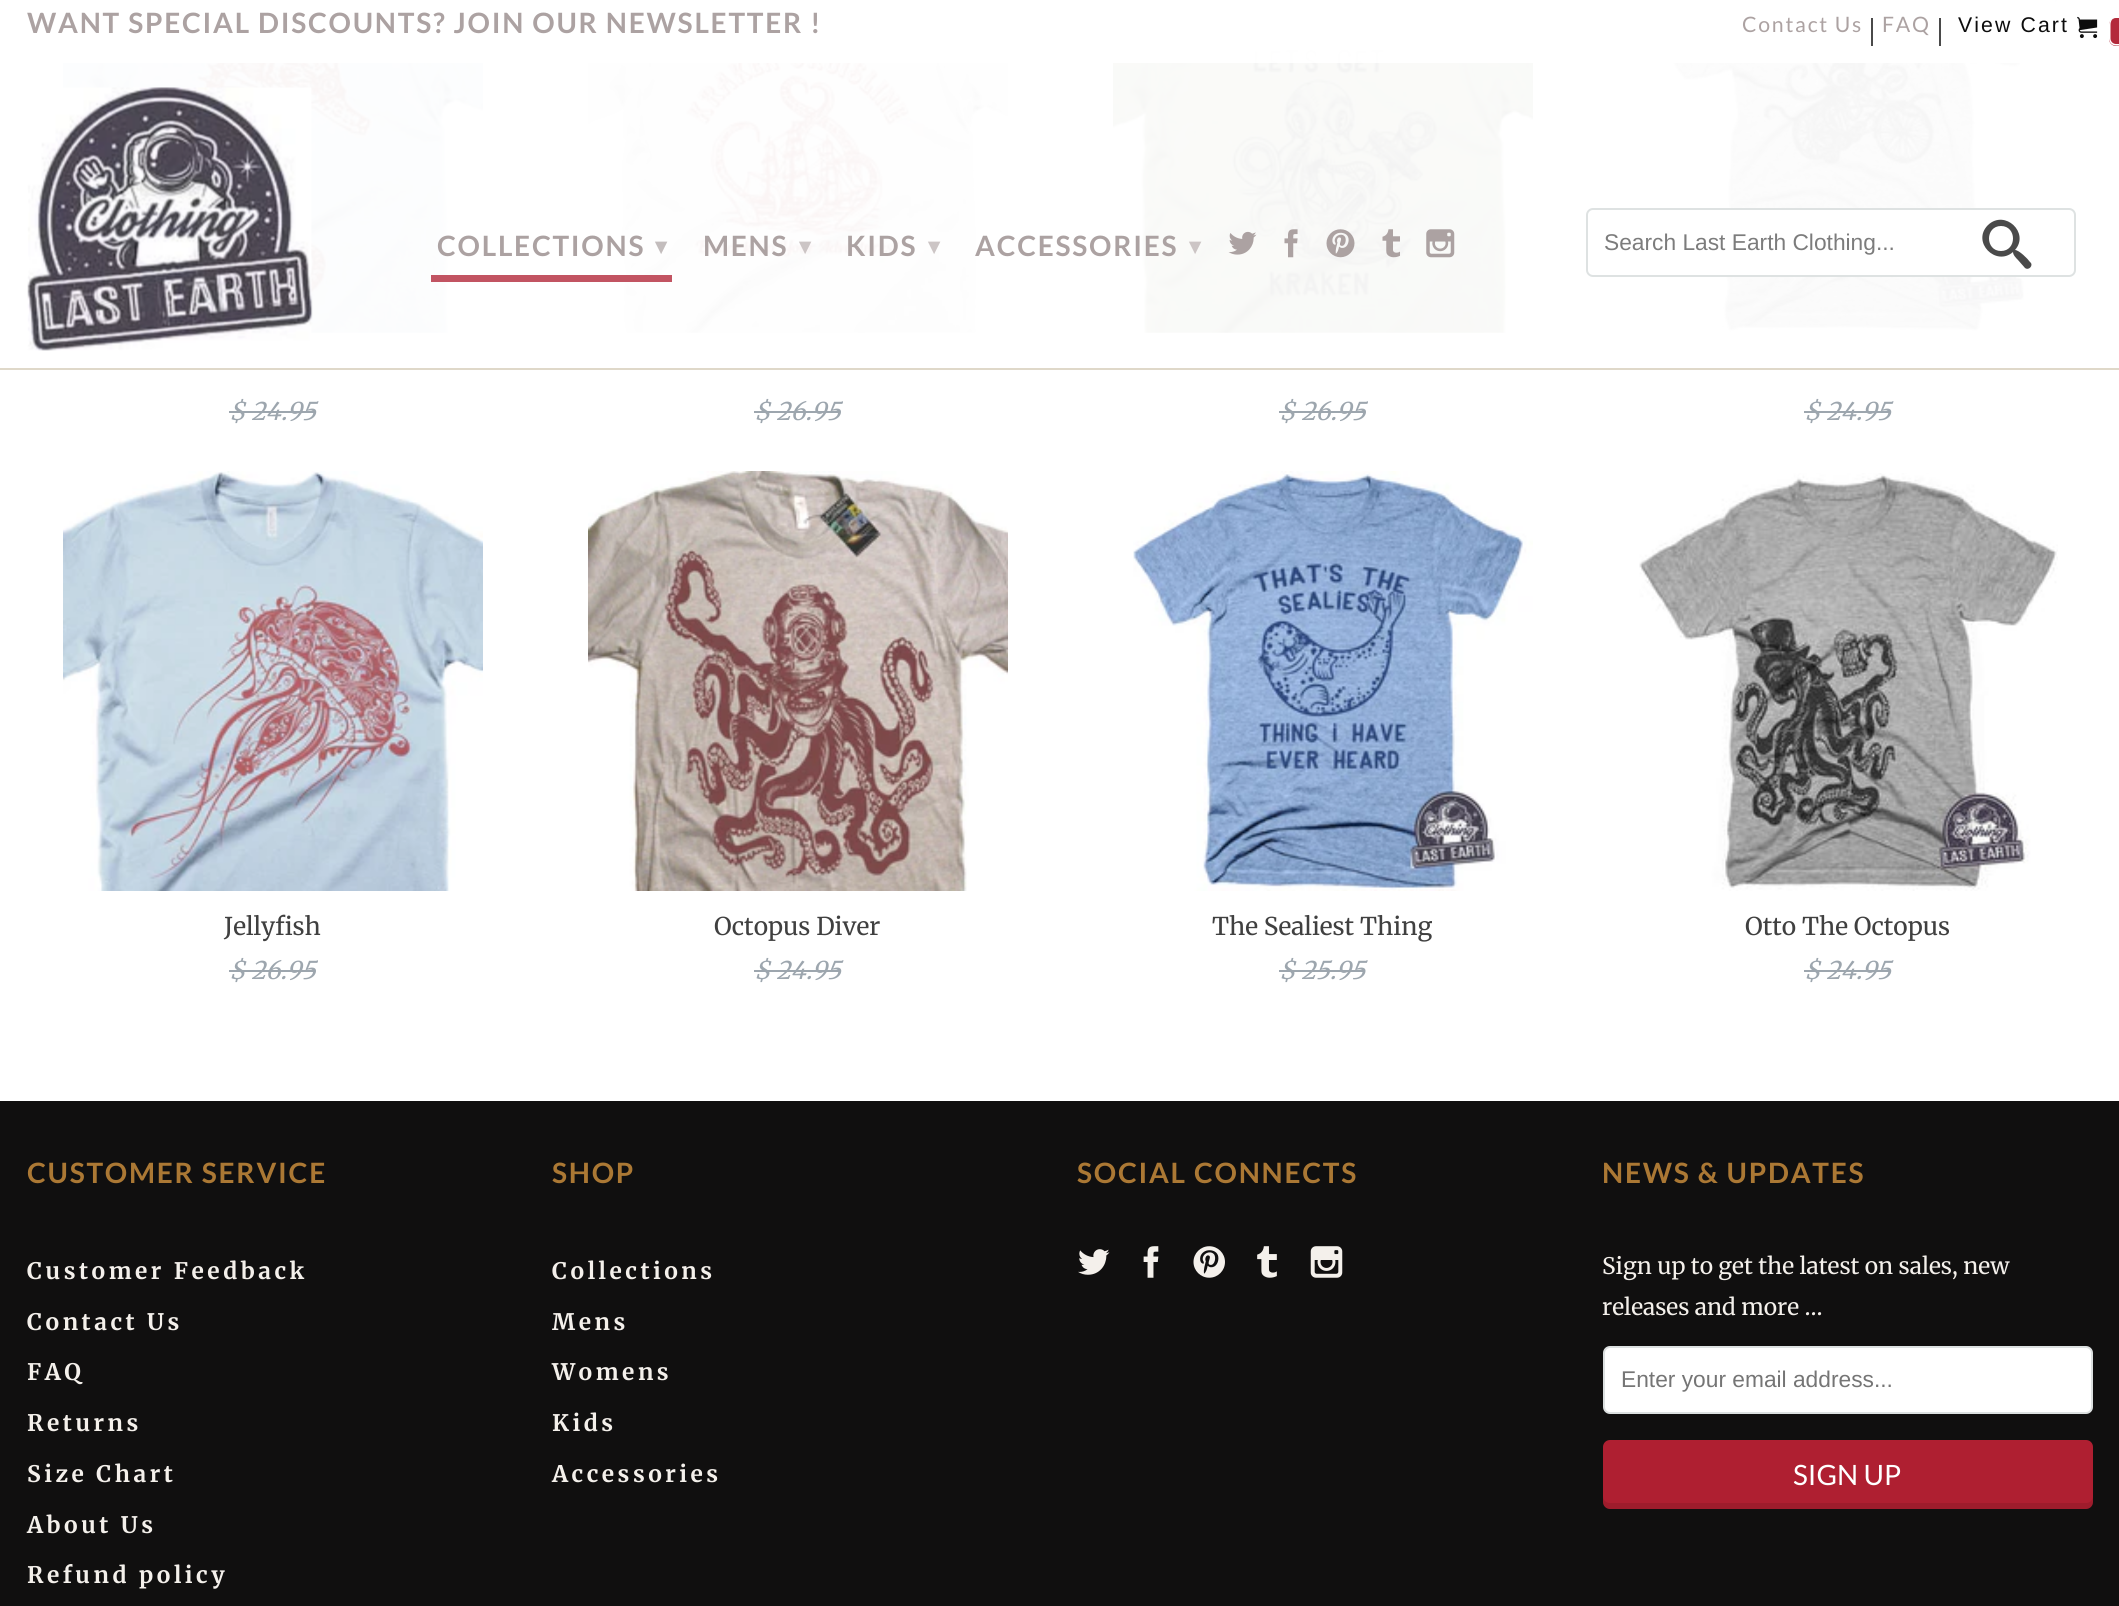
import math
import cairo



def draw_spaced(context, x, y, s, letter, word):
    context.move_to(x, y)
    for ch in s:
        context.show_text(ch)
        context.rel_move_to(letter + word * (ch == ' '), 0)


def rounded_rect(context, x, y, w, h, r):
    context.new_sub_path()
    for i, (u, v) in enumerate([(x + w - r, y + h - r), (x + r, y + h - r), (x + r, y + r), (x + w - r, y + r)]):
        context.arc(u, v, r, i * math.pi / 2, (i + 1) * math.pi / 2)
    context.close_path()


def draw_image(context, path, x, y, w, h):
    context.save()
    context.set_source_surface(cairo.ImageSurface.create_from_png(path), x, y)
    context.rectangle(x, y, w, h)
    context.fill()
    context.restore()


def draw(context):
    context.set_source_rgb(1, 1, 1)
    context.paint()
    draw_image(context, "images/8.png", 63, 0, 420, 333)
    draw_image(context, "images/9.png", 588, 0, 420, 333)
    draw_image(context, "images/10.png", 1113, 0, 420, 333)
    draw_image(context, "images/11.png", 1638, 0, 419, 333)
    context.set_source_rgba(1, 1, 1, 0.95)
    context.rectangle(63, 0, 1994, 333)
    context.fill()
    context.set_source_rgba(222 / 255, 214 / 255, 199 / 255, 0.95)
    context.rectangle(0, 368, 2119, 2)
    context.fill()
    context.set_source_rgba(1, 1, 1, 0.95)
    context.rectangle(63, 0, 1992, 63)
    context.fill()
    context.set_source_rgb(74 / 255, 74 / 255, 74 / 255)
    context.rectangle(1871, 18, 2, 28)
    context.fill()
    context.rectangle(1939, 18, 2, 28)
    context.fill()
    draw_image(context, "images/1.png", 2077, 16, 21, 23)
    context.set_source_rgb(179 / 255, 42 / 255, 59 / 255)
    rounded_rect(context, 2109, 18, 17, 28, 7)
    context.fill()
    context.set_source_rgb(1, 1, 1)
    context.set_fill_rule(cairo.FillRule.EVEN_ODD)
    context.new_path()
    context.move_to(2116, 17.5)
    context.line_to(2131.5, 17.5)
    context.curve_to(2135.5, 17.5, 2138.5, 20.5, 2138.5, 24.5)
    context.line_to(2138.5, 38.5)
    context.curve_to(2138.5, 42.5, 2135.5, 45.5, 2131.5, 45.5)
    context.line_to(2116, 45.5)
    context.curve_to(2112, 45.5, 2109, 42.5, 2109, 38.5)
    context.line_to(2109, 24.5)
    context.curve_to(2109, 20.5, 2112, 17.5, 2116, 17.5)
    context.close_path()
    context.move_to(2116, 17.5)
    context.line_to(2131.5, 17.5)
    context.curve_to(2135.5, 17.5, 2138.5, 20.5, 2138.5, 24.5)
    context.line_to(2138.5, 38.5)
    context.curve_to(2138.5, 41.5, 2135.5, 44, 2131.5, 44)
    context.line_to(2116, 44)
    context.curve_to(2113, 44, 2110.5, 41.5, 2110.5, 38.5)
    context.line_to(2110.5, 24.5)
    context.curve_to(2110.5, 20.5, 2113, 17.5, 2116, 17.5)
    context.close_path()
    context.fill()
    context.set_source_rgba(175 / 255, 31 / 255, 49 / 255, 0.76)
    context.rectangle(431, 275, 241, 7)
    context.fill()
    draw_image(context, "images/2.png", 1228, 231, 29, 24)
    draw_image(context, "images/3.png", 1284, 229, 14, 29)
    draw_image(context, "images/4.png", 1326, 229, 29, 29)
    draw_image(context, "images/5.png", 1382, 229, 18, 29)
    draw_image(context, "images/6.png", 1426, 229, 29, 29)
    draw_image(context, "images/7.png", 27, 87, 286, 264)
    context.set_source_rgba(1, 1, 1, 0.95)
    rounded_rect(context, 1587, 209, 488, 67, 6)
    context.fill_preserve()
    context.set_source_rgb(222 / 255, 226 / 255, 226 / 255)
    context.stroke()
    context.set_source_rgb(74 / 255, 74 / 255, 74 / 255)
    context.set_fill_rule(cairo.FillRule.WINDING)
    context.new_path()
    context.move_to(2030, 262)
    context.curve_to(2034, 265, 2029, 271, 2025, 268)
    context.line_to(2018, 260)
    context.curve_to(2016, 258, 2013, 255, 2013, 252)
    context.curve_to(1996, 267, 1971, 242, 1988, 225)
    context.curve_to(2005, 209, 2030, 233, 2015, 250)
    context.curve_to(2019, 250, 2028, 259, 2030, 262)
    context.close_path()
    context.move_to(2001, 251)
    context.curve_to(2017, 251, 2017, 226, 2001, 226)
    context.curve_to(1985, 226, 1985, 251, 2001, 251)
    context.close_path()
    context.fill()
    context.set_source_rgb(157 / 255, 166 / 255, 174 / 255)
    context.rectangle(229, 411, 86, 2)
    context.fill()
    context.rectangle(754, 411, 86, 2)
    context.fill()
    context.rectangle(1279, 411, 86, 2)
    context.fill()
    context.rectangle(1804, 411, 86, 2)
    context.fill()
    draw_image(context, "images/12.png", 63, 471, 420, 420)
    context.rectangle(229, 970, 86, 2)
    context.fill()
    draw_image(context, "images/13.png", 588, 471, 420, 420)
    context.rectangle(754, 970, 86, 2)
    context.fill()
    draw_image(context, "images/14.png", 1133, 471, 400, 420)
    context.rectangle(1279, 970, 86, 2)
    context.fill()
    draw_image(context, "images/15.png", 1639, 473, 419, 418)
    context.rectangle(1804, 970, 86, 2)
    context.fill()
    context.set_source_rgb(16 / 255, 15 / 255, 15 / 255)
    context.rectangle(0, 1101, 2119, 505)
    context.fill()
    draw_image(context, "images/16.png", 1078, 1249, 32, 26)
    draw_image(context, "images/17.png", 1143, 1246, 16, 32)
    draw_image(context, "images/18.png", 1193, 1246, 32, 32)
    draw_image(context, "images/19.png", 1257, 1246, 20, 32)
    draw_image(context, "images/20.png", 1310, 1246, 33, 32)
    context.set_source_rgb(1, 1, 1)
    rounded_rect(context, 1604, 1347, 488, 66, 6)
    context.fill_preserve()
    context.set_source_rgb(220 / 255, 224 / 255, 224 / 255)
    context.stroke()
    context.set_source_rgb(175 / 255, 31 / 255, 49 / 255)
    rounded_rect(context, 1603, 1440, 490, 69, 7)
    context.fill()
    context.set_source_rgba(0, 0, 0, 0.1)
    context.new_path()
    context.move_to(1603, 1496)
    context.line_to(1603, 1502)
    context.curve_to(1603, 1506, 1606, 1509, 1610, 1509)
    context.line_to(2086, 1509)
    context.curve_to(2090, 1509, 2093, 1506, 2093, 1502)
    context.line_to(2093, 1496)
    context.curve_to(2093, 1500, 2090, 1503, 2086, 1503)
    context.line_to(1610, 1503)
    context.curve_to(1606, 1503, 1603, 1500, 1603, 1496)
    context.close_path()
    context.fill()
    context.select_font_face("Lato", cairo.FontSlant.NORMAL, cairo.FontWeight.BOLD)
    context.set_font_size(28)
    context.set_source_rgb(172 / 255, 162 / 255, 162 / 255)
    draw_spaced(context, 27, 33, "WANT SPECIAL DISCOUNTS? JOIN OUR NEWSLETTER !", 1.75, 0)
    context.select_font_face("Lato")
    context.set_font_size(21.25)
    draw_spaced(context, 1742, 32, "Contact Us", 1.75, 0)
    draw_spaced(context, 1882, 32, "FAQ", 1.75, 0)
    context.select_font_face("Liberation Sans")
    context.set_source_rgb(13 / 255, 13 / 255, 13 / 255)
    draw_spaced(context, 1958, 32, "View Cart", 2.1, 0)
    context.select_font_face("Lato", cairo.FontSlant.NORMAL, cairo.FontWeight.BOLD)
    context.set_font_size(28)
    context.set_source_rgb(172 / 255, 162 / 255, 162 / 255)
    draw_spaced(context, 437, 256, "COLLECTIONS", 1.75, 0)
    context.select_font_face("DejaVu Sans", cairo.FontSlant.NORMAL, cairo.FontWeight.BOLD)
    context.set_font_size(23)
    context.set_source_rgb(195 / 255, 189 / 255, 189 / 255)
    draw_spaced(context, 655, 254, "▾", 1.75, 0)
    context.select_font_face("Lato", cairo.FontSlant.NORMAL, cairo.FontWeight.BOLD)
    context.set_font_size(28)
    context.set_source_rgb(172 / 255, 162 / 255, 162 / 255)
    draw_spaced(context, 703, 256, "MENS", 1.75, 0)
    context.select_font_face("DejaVu Sans", cairo.FontSlant.NORMAL, cairo.FontWeight.BOLD)
    context.set_font_size(23)
    context.set_source_rgb(204 / 255, 197 / 255, 197 / 255)
    draw_spaced(context, 799, 254, "▾", 1.75, 0)
    context.select_font_face("Lato", cairo.FontSlant.NORMAL, cairo.FontWeight.BOLD)
    context.set_font_size(28)
    context.set_source_rgb(172 / 255, 162 / 255, 162 / 255)
    draw_spaced(context, 846, 256, "KIDS", 1.75, 0)
    context.select_font_face("DejaVu Sans", cairo.FontSlant.NORMAL, cairo.FontWeight.BOLD)
    context.set_font_size(23)
    context.set_source_rgb(204 / 255, 197 / 255, 197 / 255)
    draw_spaced(context, 928, 254, "▾", 1.75, 0)
    context.select_font_face("Lato", cairo.FontSlant.NORMAL, cairo.FontWeight.BOLD)
    context.set_font_size(28)
    context.set_source_rgb(172 / 255, 162 / 255, 162 / 255)
    draw_spaced(context, 975, 256, "ACCESSORIES", 1.75, 0)
    context.select_font_face("DejaVu Sans", cairo.FontSlant.NORMAL, cairo.FontWeight.BOLD)
    context.set_font_size(23)
    context.set_source_rgb(204 / 255, 197 / 255, 197 / 255)
    draw_spaced(context, 1189, 254, "▾", 1.75, 0)
    context.select_font_face("Liberation Sans")
    context.set_font_size(22.75)
    context.set_source_rgb(124 / 255, 124 / 255, 124 / 255)
    context.move_to(1604, 250)
    context.show_text("Search Last Earth Clothing...")
    context.select_font_face("Merriweather", cairo.FontSlant.ITALIC)
    context.set_font_size(24.5)
    context.set_source_rgb(157 / 255, 166 / 255, 174 / 255)
    context.move_to(229, 420)
    context.show_text("$ 24.95")
    context.move_to(754, 420)
    context.show_text("$ 26.95")
    context.move_to(1279, 420)
    context.show_text("$ 26.95")
    context.move_to(1804, 420)
    context.show_text("$ 24.95")
    context.select_font_face("Merriweather")
    context.set_source_rgb(64 / 255, 64 / 255, 64 / 255)
    context.move_to(224, 935)
    context.show_text("Jellyfish")
    context.select_font_face("Merriweather", cairo.FontSlant.ITALIC)
    context.set_source_rgb(157 / 255, 166 / 255, 174 / 255)
    context.move_to(229, 979)
    context.show_text("$ 26.95")
    context.select_font_face("Merriweather")
    context.set_source_rgb(64 / 255, 64 / 255, 64 / 255)
    context.move_to(714, 935)
    context.show_text("Octopus Diver")
    context.select_font_face("Merriweather", cairo.FontSlant.ITALIC)
    context.set_source_rgb(157 / 255, 166 / 255, 174 / 255)
    context.move_to(754, 979)
    context.show_text("$ 24.95")
    context.select_font_face("Merriweather")
    context.set_source_rgb(64 / 255, 64 / 255, 64 / 255)
    context.move_to(1212, 935)
    context.show_text("The Sealiest Thing")
    context.select_font_face("Merriweather", cairo.FontSlant.ITALIC)
    context.set_source_rgb(157 / 255, 166 / 255, 174 / 255)
    context.move_to(1279, 979)
    context.show_text("$ 25.95")
    context.select_font_face("Merriweather")
    context.set_source_rgb(64 / 255, 64 / 255, 64 / 255)
    context.move_to(1745, 935)
    context.show_text("Otto The Octopus")
    context.select_font_face("Merriweather", cairo.FontSlant.ITALIC)
    context.set_source_rgb(157 / 255, 166 / 255, 174 / 255)
    context.move_to(1804, 979)
    context.show_text("$ 24.95")
    context.select_font_face("Lato", cairo.FontSlant.NORMAL, cairo.FontWeight.BOLD)
    context.set_font_size(28)
    context.set_source_rgb(171 / 255, 120 / 255, 52 / 255)
    draw_spaced(context, 27, 1183, "CUSTOMER SERVICE", 1.75, 0)
    context.select_font_face("Merriweather", cairo.FontSlant.NORMAL, cairo.FontWeight.BOLD)
    context.set_font_size(22.75)
    context.set_source_rgb(244 / 255, 240 / 255, 235 / 255)
    draw_spaced(context, 27, 1279, "Customer Feedback", 3.5, 0)
    draw_spaced(context, 27, 1330, "Contact Us", 3.5, 0)
    draw_spaced(context, 27, 1380, "FAQ", 3.5, 0)
    draw_spaced(context, 27, 1431, "Returns", 3.5, 0)
    draw_spaced(context, 27, 1482, "Size Chart", 3.5, 0)
    draw_spaced(context, 27, 1533, "About Us", 3.5, 0)
    draw_spaced(context, 27, 1583, "Refund policy", 3.5, 0)
    context.select_font_face("Lato", cairo.FontSlant.NORMAL, cairo.FontWeight.BOLD)
    context.set_font_size(28)
    context.set_source_rgb(171 / 255, 120 / 255, 52 / 255)
    draw_spaced(context, 552, 1183, "SHOP", 1.75, 0)
    context.select_font_face("Merriweather", cairo.FontSlant.NORMAL, cairo.FontWeight.BOLD)
    context.set_font_size(22.75)
    context.set_source_rgb(244 / 255, 240 / 255, 235 / 255)
    draw_spaced(context, 552, 1279, "Collections", 3.5, 0)
    draw_spaced(context, 552, 1330, "Mens", 3.5, 0)
    draw_spaced(context, 552, 1380, "Womens", 3.5, 0)
    draw_spaced(context, 552, 1431, "Kids", 3.5, 0)
    draw_spaced(context, 552, 1482, "Accessories", 3.5, 0)
    context.select_font_face("Lato", cairo.FontSlant.NORMAL, cairo.FontWeight.BOLD)
    context.set_font_size(28)
    context.set_source_rgb(171 / 255, 120 / 255, 52 / 255)
    draw_spaced(context, 1077, 1183, "SOCIAL CONNECTS", 1.75, 0)
    draw_spaced(context, 1602, 1183, "NEWS & UPDATES", 1.75, 0)
    context.select_font_face("Merriweather")
    context.set_font_size(22.75)
    context.set_source_rgb(244 / 255, 240 / 255, 235 / 255)
    context.move_to(1602, 1274)
    context.show_text("Sign up to get the latest on sales, new")
    context.move_to(1602, 1315)
    context.show_text("releases and more …")
    context.select_font_face("Liberation Sans")
    context.set_source_rgb(117 / 255, 117 / 255, 117 / 255)
    context.move_to(1621, 1387)
    context.show_text("Enter your email address...")
    context.select_font_face("Lato")
    context.set_font_size(28)
    context.set_source_rgb(1, 1, 1)
    context.move_to(1793, 1485)
    context.show_text("SIGN UP")


surface = cairo.ImageSurface(cairo.Format.RGB24, 2119, 1606)
context = cairo.Context(surface)
options = cairo.FontOptions()
options.set_hint_metrics(cairo.HintMetrics.OFF)
options.set_hint_style(cairo.HintStyle.NONE)
context.set_font_options(options)
context.set_miter_limit(4)
draw(context)
surface.write_to_png("out.png")
